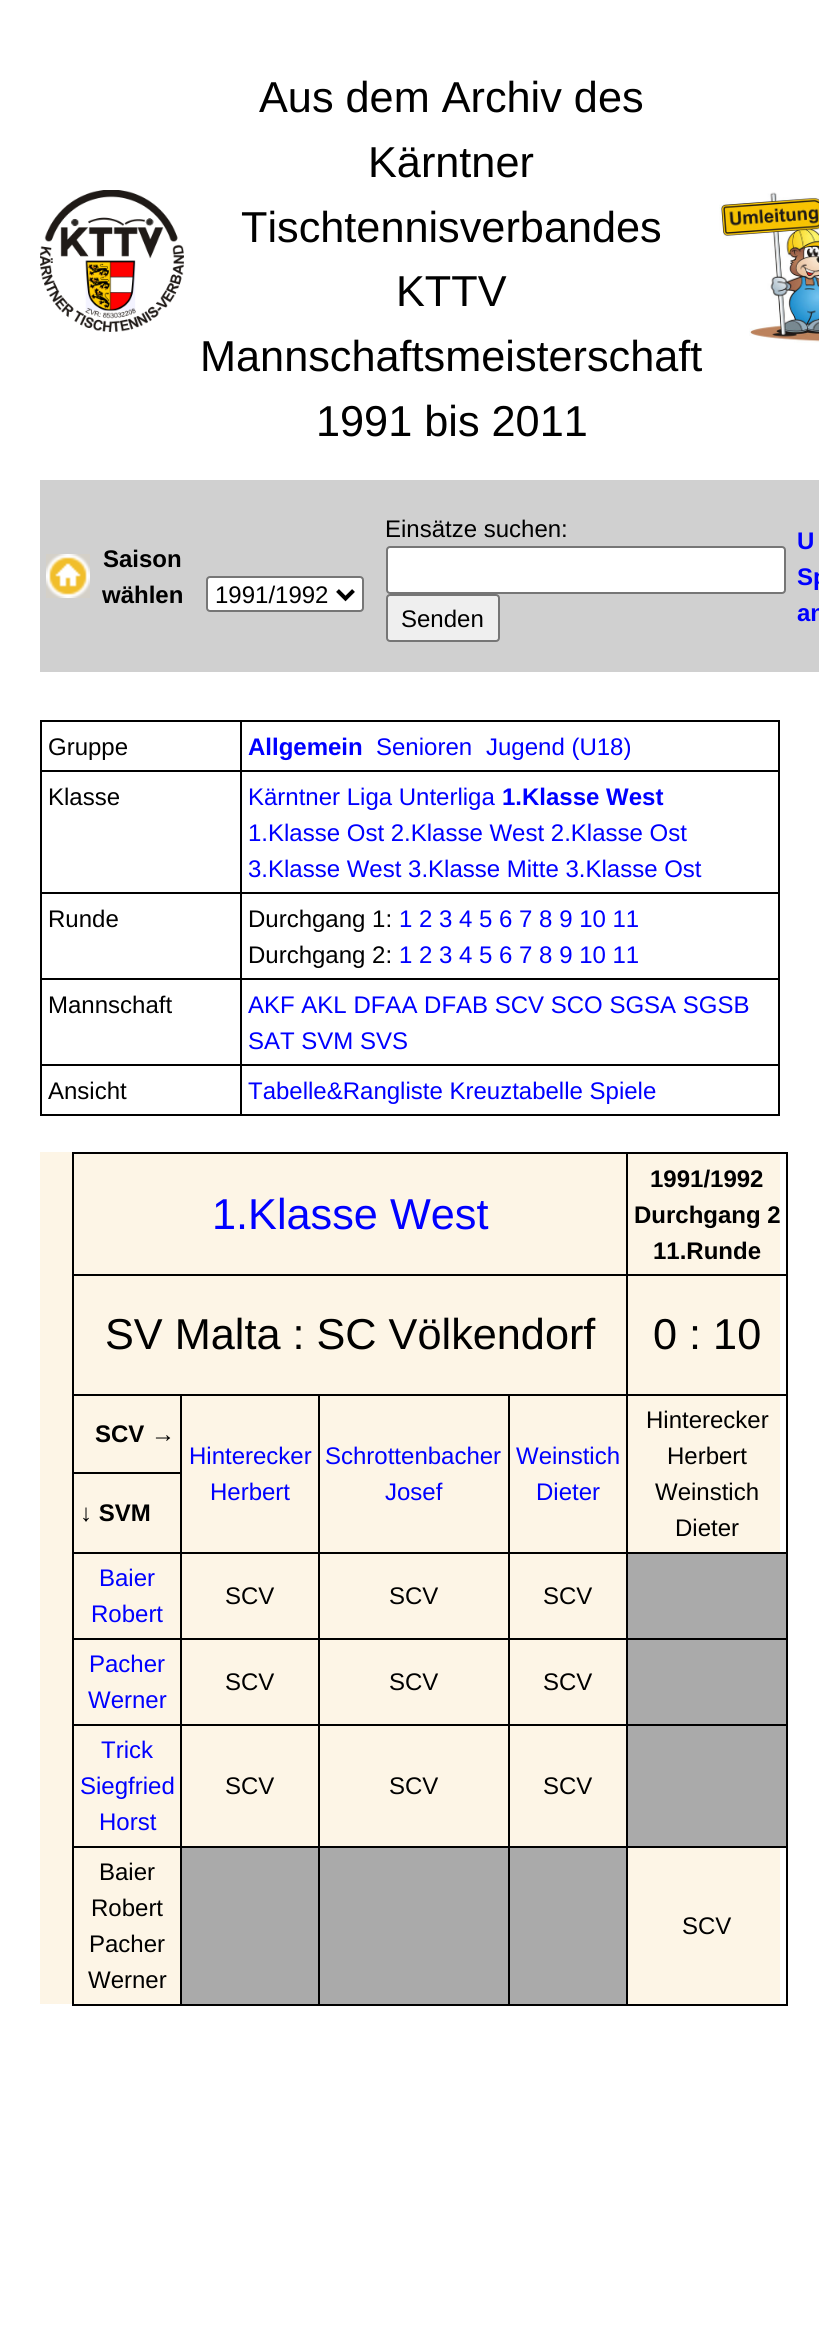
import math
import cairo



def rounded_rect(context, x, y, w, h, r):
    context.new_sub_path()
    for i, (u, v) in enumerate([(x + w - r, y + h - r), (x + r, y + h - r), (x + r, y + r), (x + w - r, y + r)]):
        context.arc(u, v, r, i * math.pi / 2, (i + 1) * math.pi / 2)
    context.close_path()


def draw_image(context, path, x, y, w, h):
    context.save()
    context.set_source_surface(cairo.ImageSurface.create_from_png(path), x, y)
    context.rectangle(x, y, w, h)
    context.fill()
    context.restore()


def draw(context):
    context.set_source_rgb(1, 1, 1)
    context.paint()
    draw_image(context, "images/1.png", 40, 190, 144, 142)
    draw_image(context, "images/2.png", 719, 192, 100, 151)
    context.set_source_rgb(208 / 255, 208 / 255, 208 / 255)
    context.rectangle(40, 480, 779, 192)
    context.fill()
    draw_image(context, "images/3.png", 46, 554, 44, 44)
    context.set_source_rgb(1, 1, 1)
    rounded_rect(context, 207, 577, 156, 34, 3)
    context.fill_preserve()
    context.set_source_rgb(118 / 255, 118 / 255, 118 / 255)
    context.stroke()
    context.new_path()
    context.move_to(337.5, 590.5)
    context.line_to(345.5, 598.5)
    context.line_to(353.5, 590.5)
    context.set_source_rgb(0, 0, 0)
    context.set_line_width(4)
    context.stroke()
    context.set_source_rgb(1, 1, 1)
    rounded_rect(context, 387, 547, 398, 46, 3)
    context.fill_preserve()
    context.set_source_rgb(118 / 255, 118 / 255, 118 / 255)
    context.set_line_width(2)
    context.stroke()
    context.set_source_rgb(239 / 255, 239 / 255, 239 / 255)
    rounded_rect(context, 387, 595, 112, 46, 3)
    context.fill_preserve()
    context.set_source_rgb(118 / 255, 118 / 255, 118 / 255)
    context.stroke()
    context.set_source_rgb(0, 0, 0)
    context.rectangle(240, 720, 540, 2)
    context.fill()
    context.rectangle(240, 770, 540, 2)
    context.fill()
    context.rectangle(240, 892, 540, 2)
    context.fill()
    context.rectangle(240, 978, 540, 2)
    context.fill()
    context.rectangle(240, 1064, 540, 2)
    context.fill()
    context.rectangle(778, 1064, 2, 52)
    context.fill()
    context.rectangle(240, 1114, 540, 2)
    context.fill()
    context.rectangle(240, 1064, 2, 52)
    context.fill()
    context.rectangle(40, 1064, 202, 2)
    context.fill()
    context.rectangle(240, 978, 2, 88)
    context.fill()
    context.rectangle(40, 978, 202, 2)
    context.fill()
    context.rectangle(240, 892, 2, 88)
    context.fill()
    context.rectangle(40, 892, 202, 2)
    context.fill()
    context.rectangle(240, 770, 2, 124)
    context.fill()
    context.rectangle(40, 770, 202, 2)
    context.fill()
    context.rectangle(240, 720, 2, 52)
    context.fill()
    context.rectangle(40, 720, 202, 2)
    context.fill()
    context.rectangle(40, 1114, 202, 2)
    context.fill()
    context.rectangle(40, 1064, 2, 52)
    context.fill()
    context.rectangle(40, 978, 2, 88)
    context.fill()
    context.rectangle(40, 892, 2, 88)
    context.fill()
    context.rectangle(40, 770, 2, 124)
    context.fill()
    context.rectangle(40, 720, 2, 52)
    context.fill()
    context.rectangle(778, 978, 2, 88)
    context.fill()
    context.rectangle(778, 892, 2, 88)
    context.fill()
    context.rectangle(778, 770, 2, 124)
    context.fill()
    context.rectangle(778, 720, 2, 52)
    context.fill()
    context.set_source_rgb(253 / 255, 245 / 255, 230 / 255)
    context.rectangle(40, 1152, 740, 852)
    context.fill()
    context.set_source_rgb(0, 0, 0)
    context.rectangle(626, 1152, 162, 2)
    context.fill()
    context.rectangle(626, 1274, 162, 2)
    context.fill()
    context.rectangle(626, 1394, 162, 2)
    context.fill()
    context.rectangle(626, 1552, 162, 2)
    context.fill()
    context.rectangle(626, 1638, 162, 2)
    context.fill()
    context.rectangle(626, 1724, 162, 2)
    context.fill()
    context.rectangle(626, 1846, 162, 2)
    context.fill()
    context.rectangle(786, 1846, 2, 160)
    context.fill()
    context.rectangle(626, 2004, 162, 2)
    context.fill()
    context.rectangle(626, 1846, 2, 160)
    context.fill()
    context.rectangle(508, 1846, 120, 2)
    context.fill()
    context.rectangle(626, 1724, 2, 124)
    context.fill()
    context.rectangle(508, 1724, 120, 2)
    context.fill()
    context.rectangle(626, 1638, 2, 88)
    context.fill()
    context.rectangle(508, 1638, 120, 2)
    context.fill()
    context.rectangle(626, 1552, 2, 88)
    context.fill()
    context.rectangle(508, 1552, 120, 2)
    context.fill()
    context.rectangle(626, 1394, 2, 160)
    context.fill()
    context.rectangle(508, 1394, 120, 2)
    context.fill()
    context.rectangle(626, 1274, 2, 122)
    context.fill()
    context.rectangle(72, 1274, 556, 2)
    context.fill()
    context.rectangle(626, 1152, 2, 124)
    context.fill()
    context.rectangle(72, 1152, 556, 2)
    context.fill()
    context.rectangle(508, 2004, 120, 2)
    context.fill()
    context.rectangle(508, 1846, 2, 160)
    context.fill()
    context.rectangle(318, 1846, 192, 2)
    context.fill()
    context.rectangle(508, 1724, 2, 124)
    context.fill()
    context.rectangle(318, 1724, 192, 2)
    context.fill()
    context.rectangle(508, 1638, 2, 88)
    context.fill()
    context.rectangle(318, 1638, 192, 2)
    context.fill()
    context.rectangle(508, 1552, 2, 88)
    context.fill()
    context.rectangle(318, 1552, 192, 2)
    context.fill()
    context.rectangle(508, 1394, 2, 160)
    context.fill()
    context.rectangle(318, 1394, 192, 2)
    context.fill()
    context.rectangle(318, 2004, 192, 2)
    context.fill()
    context.rectangle(318, 1846, 2, 160)
    context.fill()
    context.rectangle(180, 1846, 140, 2)
    context.fill()
    context.rectangle(318, 1724, 2, 124)
    context.fill()
    context.rectangle(180, 1724, 140, 2)
    context.fill()
    context.rectangle(318, 1638, 2, 88)
    context.fill()
    context.rectangle(180, 1638, 140, 2)
    context.fill()
    context.rectangle(318, 1552, 2, 88)
    context.fill()
    context.rectangle(180, 1552, 140, 2)
    context.fill()
    context.rectangle(318, 1394, 2, 160)
    context.fill()
    context.rectangle(180, 1394, 140, 2)
    context.fill()
    context.rectangle(72, 1472, 110, 2)
    context.fill()
    context.rectangle(180, 2004, 140, 2)
    context.fill()
    context.rectangle(180, 1846, 2, 160)
    context.fill()
    context.rectangle(72, 1846, 110, 2)
    context.fill()
    context.rectangle(180, 1724, 2, 124)
    context.fill()
    context.rectangle(72, 1724, 110, 2)
    context.fill()
    context.rectangle(180, 1638, 2, 88)
    context.fill()
    context.rectangle(72, 1638, 110, 2)
    context.fill()
    context.rectangle(180, 1552, 2, 88)
    context.fill()
    context.rectangle(72, 1552, 110, 2)
    context.fill()
    context.rectangle(180, 1394, 2, 160)
    context.fill()
    context.rectangle(72, 1394, 110, 2)
    context.fill()
    context.rectangle(72, 2004, 110, 2)
    context.fill()
    context.rectangle(72, 1846, 2, 160)
    context.fill()
    context.rectangle(72, 1724, 2, 124)
    context.fill()
    context.rectangle(72, 1638, 2, 88)
    context.fill()
    context.rectangle(72, 1552, 2, 88)
    context.fill()
    context.rectangle(72, 1472, 2, 82)
    context.fill()
    context.rectangle(72, 1394, 2, 80)
    context.fill()
    context.rectangle(72, 1274, 2, 122)
    context.fill()
    context.rectangle(72, 1152, 2, 124)
    context.fill()
    context.rectangle(786, 1724, 2, 124)
    context.fill()
    context.rectangle(786, 1638, 2, 88)
    context.fill()
    context.rectangle(786, 1552, 2, 88)
    context.fill()
    context.rectangle(786, 1394, 2, 160)
    context.fill()
    context.rectangle(786, 1274, 2, 122)
    context.fill()
    context.rectangle(786, 1152, 2, 124)
    context.fill()
    context.set_source_rgb(170 / 255, 170 / 255, 170 / 255)
    context.rectangle(628, 1554, 158, 84)
    context.fill()
    context.rectangle(628, 1640, 158, 84)
    context.fill()
    context.rectangle(628, 1726, 158, 120)
    context.fill()
    context.rectangle(182, 1848, 136, 156)
    context.fill()
    context.rectangle(320, 1848, 188, 156)
    context.fill()
    context.rectangle(510, 1848, 116, 156)
    context.fill()
    context.select_font_face("Liberation Sans")
    context.set_font_size(43.25)
    context.set_source_rgb(0, 0, 0)
    context.move_to(259, 112)
    context.show_text("Aus dem Archiv des")
    context.move_to(368, 177)
    context.show_text("Kärntner")
    context.move_to(241, 242)
    context.show_text("Tischtennisverbandes")
    context.move_to(396, 306)
    context.show_text("KTTV")
    context.move_to(200, 371)
    context.show_text("Mannschaftsmeisterschaft")
    context.move_to(316, 436)
    context.show_text("1991 bis 2011")
    context.select_font_face("Liberation Sans", cairo.FontSlant.NORMAL, cairo.FontWeight.BOLD)
    context.set_font_size(24)
    context.move_to(103, 567)
    context.show_text("Saison")
    context.move_to(102, 603)
    context.show_text("wählen")
    context.select_font_face("Liberation Sans")
    context.move_to(215, 603)
    context.show_text("1991/1992")
    context.move_to(385, 537)
    context.show_text("Einsätze suchen:")
    context.move_to(401, 627)
    context.show_text("Senden")
    context.select_font_face("Liberation Sans", cairo.FontSlant.NORMAL, cairo.FontWeight.BOLD)
    context.set_source_rgb(0, 0, 1)
    context.move_to(797, 549)
    context.show_text("U")
    context.move_to(797, 585)
    context.show_text("Sp")
    context.move_to(797, 621)
    context.show_text("an")
    context.select_font_face("Liberation Sans")
    context.set_source_rgb(0, 0, 0)
    context.move_to(48, 755)
    context.show_text("Gruppe")
    context.select_font_face("Liberation Sans", cairo.FontSlant.NORMAL, cairo.FontWeight.BOLD)
    context.set_source_rgb(0, 0, 1)
    context.move_to(248, 755)
    context.show_text("Allgemein")
    context.select_font_face("Liberation Sans")
    context.move_to(376, 755)
    context.show_text("Senioren")
    context.move_to(486, 755)
    context.show_text("Jugend (U18)")
    context.set_source_rgb(0, 0, 0)
    context.move_to(48, 805)
    context.show_text("Klasse")
    context.set_source_rgb(0, 0, 1)
    context.move_to(248, 805)
    context.show_text("Kärntner Liga Unterliga")
    context.select_font_face("Liberation Sans", cairo.FontSlant.NORMAL, cairo.FontWeight.BOLD)
    context.move_to(502, 805)
    context.show_text("1.Klasse West")
    context.select_font_face("Liberation Sans")
    context.move_to(248, 841)
    context.show_text("1.Klasse Ost 2.Klasse West 2.Klasse Ost")
    context.move_to(248, 877)
    context.show_text("3.Klasse West 3.Klasse Mitte 3.Klasse Ost")
    context.set_source_rgb(0, 0, 0)
    context.move_to(48, 927)
    context.show_text("Runde")
    context.move_to(248, 927)
    context.show_text("Durchgang 1:")
    context.set_source_rgb(0, 0, 1)
    context.move_to(399, 927)
    context.show_text("1 2 3 4 5 6 7 8 9 10 11")
    context.set_source_rgb(0, 0, 0)
    context.move_to(248, 963)
    context.show_text("Durchgang 2:")
    context.set_source_rgb(0, 0, 1)
    context.move_to(399, 963)
    context.show_text("1 2 3 4 5 6 7 8 9 10 11")
    context.set_source_rgb(0, 0, 0)
    context.move_to(48, 1013)
    context.show_text("Mannschaft")
    context.set_source_rgb(0, 0, 1)
    context.move_to(248, 1013)
    context.show_text("AKF AKL DFAA DFAB SCV SCO SGSA SGSB")
    context.move_to(248, 1049)
    context.show_text("SAT SVM SVS")
    context.set_source_rgb(0, 0, 0)
    context.move_to(48, 1099)
    context.show_text("Ansicht")
    context.set_source_rgb(0, 0, 1)
    context.move_to(248, 1099)
    context.show_text("Tabelle&Rangliste Kreuztabelle Spiele")
    context.set_font_size(43.25)
    context.move_to(212, 1229)
    context.show_text("1.Klasse West")
    context.select_font_face("Liberation Sans", cairo.FontSlant.NORMAL, cairo.FontWeight.BOLD)
    context.set_font_size(24)
    context.set_source_rgb(0, 0, 0)
    context.move_to(650, 1187)
    context.show_text("1991/1992")
    context.move_to(634, 1223)
    context.show_text("Durchgang 2")
    context.move_to(653, 1259)
    context.show_text("11.Runde")
    context.select_font_face("Liberation Sans")
    context.set_font_size(43.25)
    context.move_to(105, 1349)
    context.show_text("SV Malta : SC Völkendorf")
    context.move_to(653, 1349)
    context.show_text("0 : 10")
    context.select_font_face("Liberation Sans", cairo.FontSlant.NORMAL, cairo.FontWeight.BOLD)
    context.set_font_size(24)
    context.move_to(95, 1442)
    context.show_text("SCV →")
    context.select_font_face("Liberation Sans")
    context.move_to(646, 1428)
    context.show_text("Hinterecker")
    context.move_to(667, 1464)
    context.show_text("Herbert")
    context.move_to(655, 1500)
    context.show_text("Weinstich")
    context.move_to(675, 1536)
    context.show_text("Dieter")
    context.set_source_rgb(0, 0, 1)
    context.move_to(189, 1464)
    context.show_text("Hinterecker")
    context.move_to(210, 1500)
    context.show_text("Herbert")
    context.move_to(325, 1464)
    context.show_text("Schrottenbacher")
    context.move_to(385, 1500)
    context.show_text("Josef")
    context.move_to(516, 1464)
    context.show_text("Weinstich")
    context.move_to(536, 1500)
    context.show_text("Dieter")
    context.select_font_face("Liberation Sans", cairo.FontSlant.NORMAL, cairo.FontWeight.BOLD)
    context.set_source_rgb(0, 0, 0)
    context.move_to(80, 1521)
    context.show_text("↓ SVM")
    context.select_font_face("Liberation Sans")
    context.set_source_rgb(0, 0, 1)
    context.move_to(99, 1586)
    context.show_text("Baier")
    context.move_to(91, 1622)
    context.show_text("Robert")
    context.set_source_rgb(0, 0, 0)
    context.move_to(225, 1604)
    context.show_text("SCV")
    context.move_to(389, 1604)
    context.show_text("SCV")
    context.move_to(543, 1604)
    context.show_text("SCV")
    context.set_source_rgb(0, 0, 1)
    context.move_to(89, 1672)
    context.show_text("Pacher")
    context.move_to(88, 1708)
    context.show_text("Werner")
    context.set_source_rgb(0, 0, 0)
    context.move_to(225, 1690)
    context.show_text("SCV")
    context.move_to(389, 1690)
    context.show_text("SCV")
    context.move_to(543, 1690)
    context.show_text("SCV")
    context.set_source_rgb(0, 0, 1)
    context.move_to(101, 1758)
    context.show_text("Trick")
    context.move_to(80, 1794)
    context.show_text("Siegfried")
    context.move_to(99, 1830)
    context.show_text("Horst")
    context.set_source_rgb(0, 0, 0)
    context.move_to(225, 1794)
    context.show_text("SCV")
    context.move_to(389, 1794)
    context.show_text("SCV")
    context.move_to(543, 1794)
    context.show_text("SCV")
    context.move_to(99, 1880)
    context.show_text("Baier")
    context.move_to(91, 1916)
    context.show_text("Robert")
    context.move_to(89, 1952)
    context.show_text("Pacher")
    context.move_to(88, 1988)
    context.show_text("Werner")
    context.move_to(682, 1934)
    context.show_text("SCV")


surface = cairo.ImageSurface(cairo.Format.RGB24, 819, 2334)
context = cairo.Context(surface)
options = cairo.FontOptions()
options.set_hint_metrics(cairo.HintMetrics.OFF)
options.set_hint_style(cairo.HintStyle.NONE)
context.set_font_options(options)
context.set_miter_limit(4)
draw(context)
surface.write_to_png("out.png")
